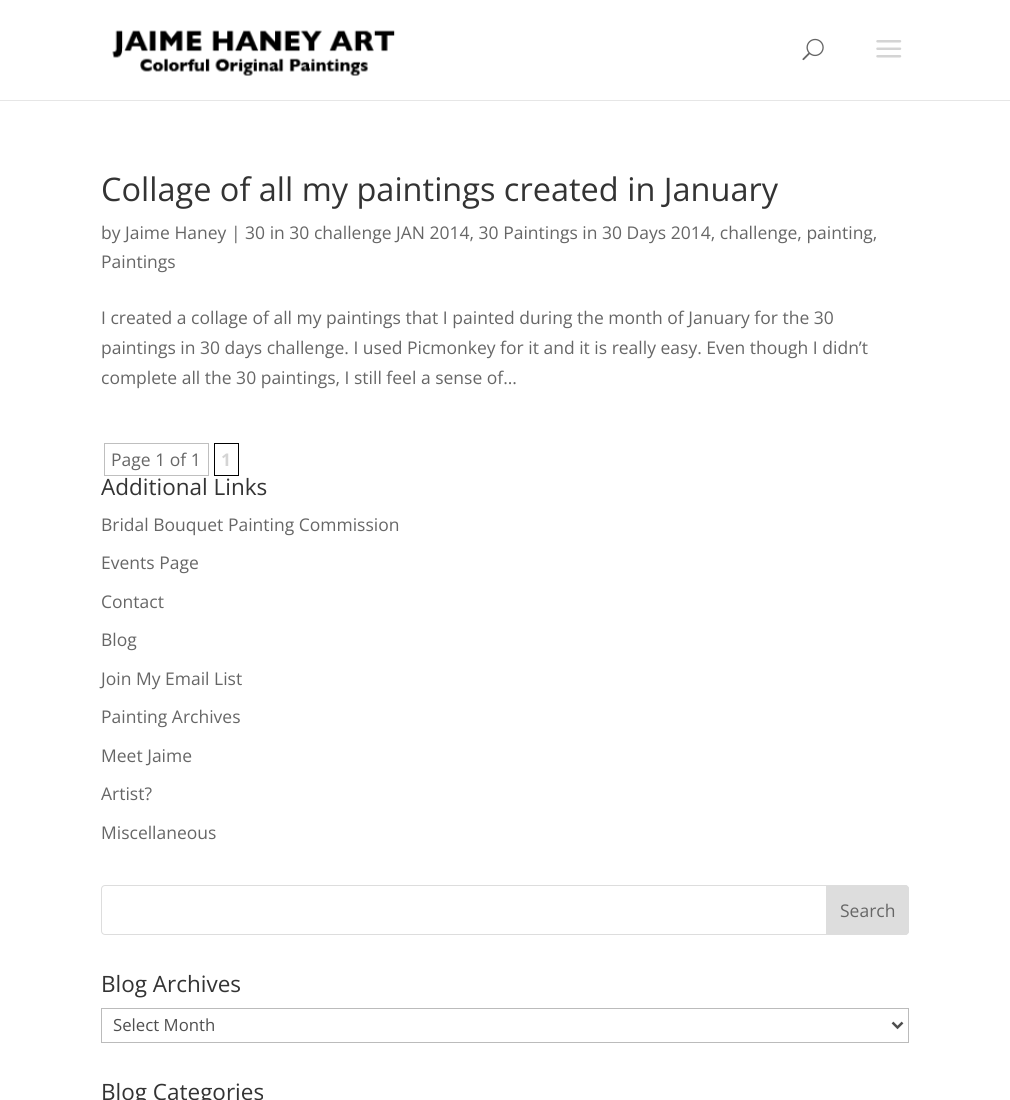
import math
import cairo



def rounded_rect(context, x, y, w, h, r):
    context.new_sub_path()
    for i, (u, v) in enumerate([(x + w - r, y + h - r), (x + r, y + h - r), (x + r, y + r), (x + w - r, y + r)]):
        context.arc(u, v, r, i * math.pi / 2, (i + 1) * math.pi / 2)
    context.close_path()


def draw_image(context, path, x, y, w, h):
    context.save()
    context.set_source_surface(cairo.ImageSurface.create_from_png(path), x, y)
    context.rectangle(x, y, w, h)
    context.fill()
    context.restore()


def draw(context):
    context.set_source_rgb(1, 1, 1)
    context.paint()
    context.set_source_rgb(230 / 255, 230 / 255, 230 / 255)
    context.rectangle(0, 100, 1010, 1)
    context.fill()
    draw_image(context, "images/1.png", 112, 30, 284, 46)
    draw_image(context, "images/2.png", 802, 38, 22, 23)
    draw_image(context, "images/3.png", 876, 40, 26, 18)
    context.rectangle(104.5, 443.5, 104, 32)
    context.set_source_rgb(191 / 255, 191 / 255, 191 / 255)
    context.set_line_width(1)
    context.stroke()
    context.rectangle(214.5, 443.5, 24, 32)
    context.set_source_rgb(0, 0, 0)
    context.stroke()
    rounded_rect(context, 101.5, 885.5, 807, 49, 3.5)
    context.set_source_rgb(221 / 255, 221 / 255, 221 / 255)
    context.stroke()
    context.new_path()
    context.move_to(826.5, 885.5)
    context.line_to(905, 885.5)
    context.curve_to(907, 885.5, 908.5, 887, 908.5, 889)
    context.line_to(908.5, 931)
    context.curve_to(908.5, 933, 907, 934.5, 905, 934.5)
    context.line_to(826.5, 934.5)
    context.close_path()
    context.fill_preserve()
    context.stroke()
    context.rectangle(101.5, 1008.5, 807, 34)
    context.set_source_rgb(187 / 255, 187 / 255, 187 / 255)
    context.stroke()
    context.new_path()
    context.move_to(892.5, 1022.5)
    context.line_to(897.5, 1027.5)
    context.line_to(902.5, 1022.5)
    context.set_source_rgb(78 / 255, 78 / 255, 78 / 255)
    context.set_line_width(2.5)
    context.stroke()
    context.select_font_face("Open Sans")
    context.set_font_size(32.5)
    context.set_source_rgb(51 / 255, 51 / 255, 51 / 255)
    context.move_to(101, 201)
    context.show_text("Collage of all my paintings created in January")
    context.set_font_size(17.5)
    context.set_source_rgb(102 / 255, 102 / 255, 102 / 255)
    context.move_to(101, 239)
    context.show_text("by Jaime Haney | 30 in 30 challenge JAN 2014, 30 Paintings in 30 Days 2014, challenge, painting,")
    context.move_to(101, 268)
    context.show_text("Paintings")
    context.move_to(101, 324)
    context.show_text("I created a collage of all my paintings that I painted during the month of January for the 30")
    context.move_to(101, 354)
    context.show_text("paintings in 30 days challenge. I used Picmonkey for it and it is really easy. Even though I didn’t")
    context.move_to(101, 384)
    context.show_text("complete all the 30 paintings, I still feel a sense of...")
    context.move_to(111, 466)
    context.show_text("Page 1 of 1")
    context.select_font_face("Open Sans", cairo.FontSlant.NORMAL, cairo.FontWeight.BOLD)
    context.set_source_rgb(212 / 255, 212 / 255, 212 / 255)
    context.move_to(221, 466)
    context.show_text("1")
    context.select_font_face("Open Sans")
    context.set_font_size(22.5)
    context.set_source_rgb(51 / 255, 51 / 255, 51 / 255)
    context.move_to(101, 495)
    context.show_text("Additional Links")
    context.set_font_size(17.5)
    context.set_source_rgb(102 / 255, 102 / 255, 102 / 255)
    context.move_to(101, 531)
    context.show_text("Bridal Bouquet Painting Commission")
    context.move_to(101, 569)
    context.show_text("Events Page")
    context.move_to(101, 608)
    context.show_text("Contact")
    context.move_to(101, 646)
    context.show_text("Blog")
    context.move_to(101, 685)
    context.show_text("Join My Email List")
    context.move_to(101, 723)
    context.show_text("Painting Archives")
    context.move_to(101, 762)
    context.show_text("Meet Jaime")
    context.move_to(101, 800)
    context.show_text("Artist?")
    context.move_to(101, 839)
    context.show_text("Miscellaneous")
    context.move_to(840, 917)
    context.show_text("Search")
    context.set_font_size(22.5)
    context.set_source_rgb(51 / 255, 51 / 255, 51 / 255)
    context.move_to(101, 992)
    context.show_text("Blog Archives")
    context.set_font_size(16.75)
    context.set_source_rgb(78 / 255, 78 / 255, 78 / 255)
    context.move_to(113, 1031)
    context.show_text("Select Month")
    context.set_font_size(22.5)
    context.set_source_rgb(51 / 255, 51 / 255, 51 / 255)
    context.move_to(101, 1100)
    context.show_text("Blog Categories")


surface = cairo.ImageSurface(cairo.Format.RGB24, 1010, 1100)
context = cairo.Context(surface)
options = cairo.FontOptions()
options.set_hint_metrics(cairo.HintMetrics.OFF)
options.set_hint_style(cairo.HintStyle.NONE)
context.set_font_options(options)
context.set_miter_limit(4)
draw(context)
surface.write_to_png("out.png")
